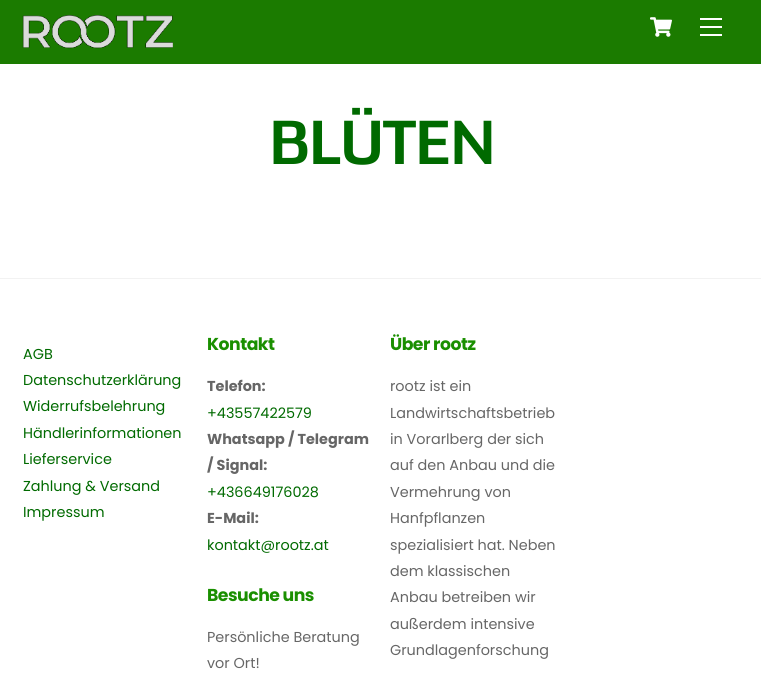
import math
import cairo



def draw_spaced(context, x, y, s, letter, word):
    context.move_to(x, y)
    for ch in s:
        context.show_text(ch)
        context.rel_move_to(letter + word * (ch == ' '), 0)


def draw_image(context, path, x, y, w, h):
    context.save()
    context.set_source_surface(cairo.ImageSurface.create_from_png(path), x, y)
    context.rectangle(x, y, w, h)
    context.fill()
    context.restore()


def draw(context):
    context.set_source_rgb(1, 1, 1)
    context.paint()
    context.set_source_rgb(27 / 255, 123 / 255, 0)
    context.rectangle(0, 0, 761, 64)
    context.fill()
    draw_image(context, "images/1.png", 22, 15, 151, 34)
    draw_image(context, "images/2.png", 650, 17, 22, 20)
    context.set_source_rgb(1, 1, 1)
    context.rectangle(700, 34, 22, 2)
    context.fill()
    context.rectangle(700, 18, 22, 2)
    context.fill()
    context.rectangle(700, 26, 22, 2)
    context.fill()
    context.set_source_rgb(242 / 255, 242 / 255, 242 / 255)
    context.rectangle(0, 278, 761, 1)
    context.fill()
    context.select_font_face("Monda", cairo.FontSlant.NORMAL, cairo.FontWeight.BOLD)
    context.set_font_size(60)
    context.set_source_rgb(0, 106 / 255, 0)
    draw_spaced(context, 268, 164, "BLÜTEN", -3, 0)
    context.select_font_face("Poppins")
    context.set_font_size(14.4)
    context.move_to(23, 359)
    context.show_text("AGB")
    context.move_to(23, 385)
    context.show_text("Datenschutzerklärung")
    context.move_to(23, 411)
    context.show_text("Widerrufsbelehrung")
    context.move_to(23, 438)
    context.show_text("Händlerinformationen")
    context.move_to(23, 464)
    context.show_text("Lieferservice")
    context.move_to(23, 491)
    context.show_text("Zahlung & Versand")
    context.move_to(23, 517)
    context.show_text("Impressum")
    context.select_font_face("Poppins", cairo.FontSlant.NORMAL, cairo.FontWeight.BOLD)
    context.set_font_size(17.25)
    context.set_source_rgb(26 / 255, 143 / 255, 0)
    draw_spaced(context, 207, 350, "Kontakt", -0.5, 0)
    context.set_font_size(14.4)
    context.set_source_rgb(102 / 255, 102 / 255, 102 / 255)
    context.move_to(207, 391)
    context.show_text("Telefon:")
    context.select_font_face("Poppins")
    context.set_source_rgb(0, 106 / 255, 0)
    context.move_to(207, 418)
    context.show_text("+43557422579")
    context.select_font_face("Poppins", cairo.FontSlant.NORMAL, cairo.FontWeight.BOLD)
    context.set_source_rgb(102 / 255, 102 / 255, 102 / 255)
    context.move_to(207, 444)
    context.show_text("Whatsapp / Telegram")
    context.move_to(207, 470)
    context.show_text("/ Signal:")
    context.select_font_face("Poppins")
    context.set_source_rgb(0, 106 / 255, 0)
    context.move_to(207, 497)
    context.show_text("+436649176028")
    context.select_font_face("Poppins", cairo.FontSlant.NORMAL, cairo.FontWeight.BOLD)
    context.set_source_rgb(102 / 255, 102 / 255, 102 / 255)
    context.move_to(207, 523)
    context.show_text("E-Mail:")
    context.select_font_face("Poppins")
    context.set_source_rgb(0, 106 / 255, 0)
    context.move_to(207, 550)
    context.show_text("kontakt@rootz.at")
    context.select_font_face("Poppins", cairo.FontSlant.NORMAL, cairo.FontWeight.BOLD)
    context.set_font_size(17.25)
    context.set_source_rgb(26 / 255, 143 / 255, 0)
    draw_spaced(context, 207, 601, "Besuche uns", -0.5, 0)
    context.select_font_face("Poppins")
    context.set_font_size(14.4)
    context.set_source_rgb(102 / 255, 102 / 255, 102 / 255)
    context.move_to(207, 642)
    context.show_text("Persönliche Beratung")
    context.move_to(207, 668)
    context.show_text("vor Ort!")
    context.select_font_face("Poppins", cairo.FontSlant.NORMAL, cairo.FontWeight.BOLD)
    context.set_font_size(17.25)
    context.set_source_rgb(26 / 255, 143 / 255, 0)
    draw_spaced(context, 390, 350, "Über rootz", -0.5, 0)
    context.select_font_face("Poppins")
    context.set_font_size(14.4)
    context.set_source_rgb(102 / 255, 102 / 255, 102 / 255)
    context.move_to(390, 391)
    context.show_text("rootz ist ein")
    context.move_to(390, 418)
    context.show_text("Landwirtschaftsbetrieb")
    context.move_to(390, 444)
    context.show_text("in Vorarlberg der sich")
    context.move_to(390, 470)
    context.show_text("auf den Anbau und die")
    context.move_to(390, 497)
    context.show_text("Vermehrung von")
    context.move_to(390, 523)
    context.show_text("Hanfpflanzen")
    context.move_to(390, 550)
    context.show_text("spezialisiert hat. Neben")
    context.move_to(390, 576)
    context.show_text("dem klassischen")
    context.move_to(390, 602)
    context.show_text("Anbau betreiben wir")
    context.move_to(390, 629)
    context.show_text("außerdem intensive")
    context.move_to(390, 655)
    context.show_text("Grundlagenforschung")


surface = cairo.ImageSurface(cairo.Format.RGB24, 761, 673)
context = cairo.Context(surface)
options = cairo.FontOptions()
options.set_hint_metrics(cairo.HintMetrics.OFF)
options.set_hint_style(cairo.HintStyle.NONE)
context.set_font_options(options)
context.set_miter_limit(4)
draw(context)
surface.write_to_png("out.png")
